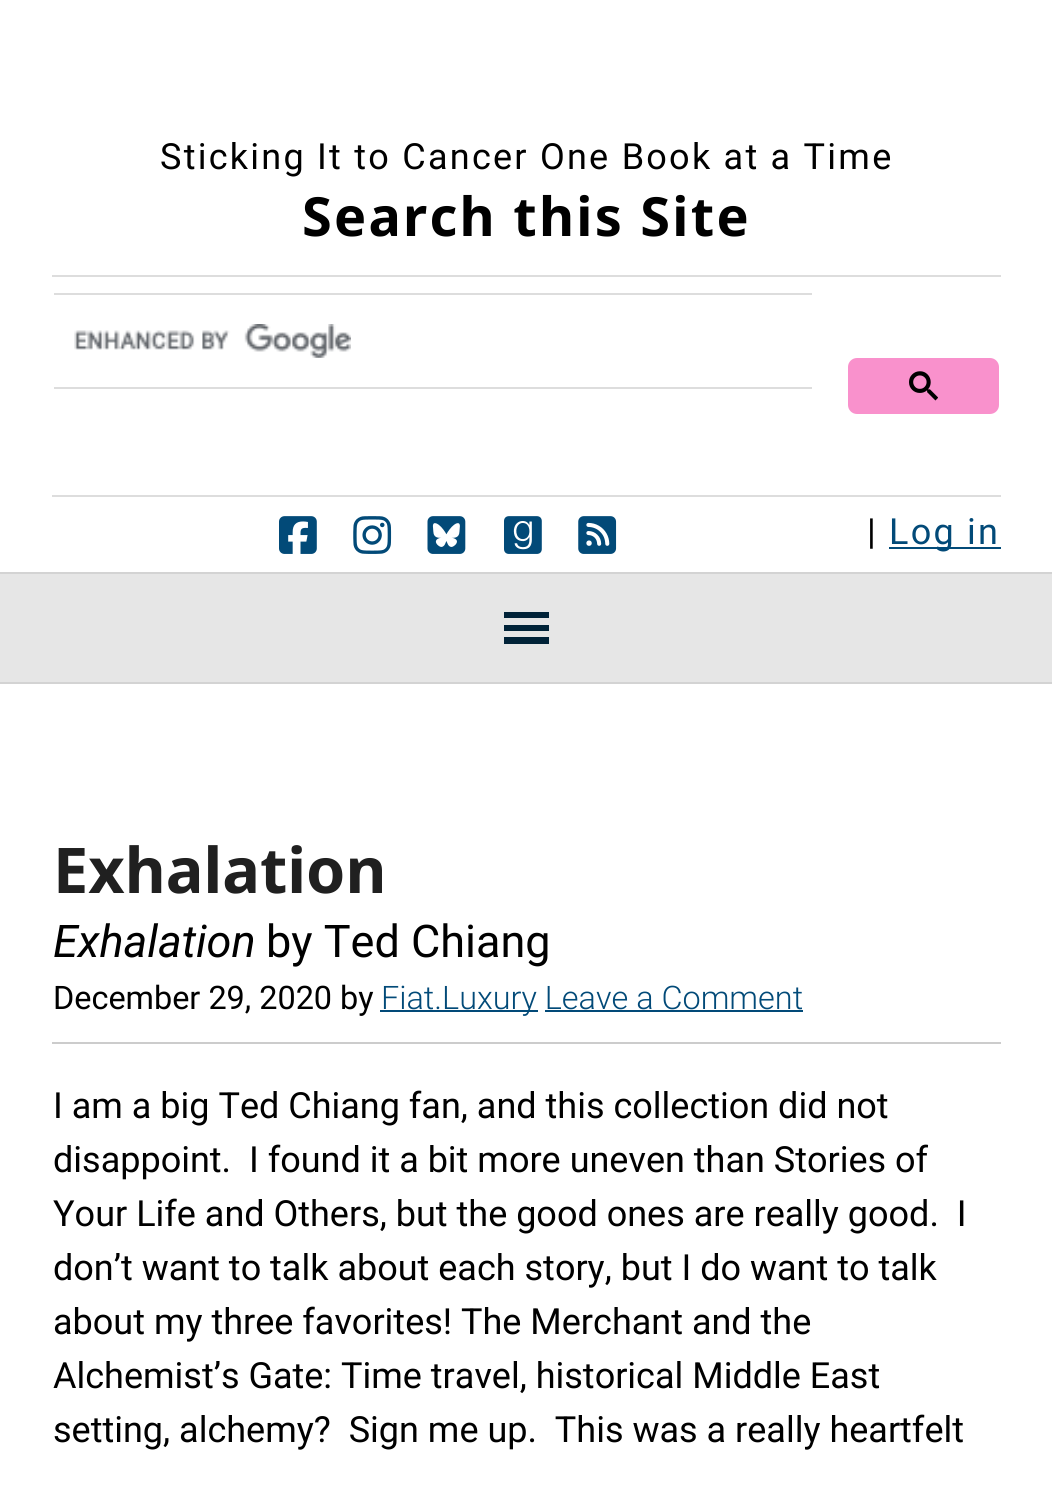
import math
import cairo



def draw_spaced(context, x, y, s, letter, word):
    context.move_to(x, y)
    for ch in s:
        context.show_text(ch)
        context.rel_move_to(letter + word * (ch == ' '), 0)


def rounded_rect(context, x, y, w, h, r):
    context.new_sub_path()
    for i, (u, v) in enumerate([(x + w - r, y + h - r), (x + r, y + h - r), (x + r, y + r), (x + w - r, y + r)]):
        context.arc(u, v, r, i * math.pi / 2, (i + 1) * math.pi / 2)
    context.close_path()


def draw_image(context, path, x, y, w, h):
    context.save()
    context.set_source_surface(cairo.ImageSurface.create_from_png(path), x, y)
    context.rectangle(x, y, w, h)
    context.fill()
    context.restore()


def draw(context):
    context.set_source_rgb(1, 1, 1)
    context.paint()
    context.set_source_rgb(221 / 255, 221 / 255, 221 / 255)
    context.rectangle(52, 495, 949, 2)
    context.fill()
    context.rectangle(52, 275, 949, 2)
    context.fill()
    context.set_source_rgb(249 / 255, 145 / 255, 204 / 255)
    rounded_rect(context, 847, 357, 153, 58, 10)
    context.fill_preserve()
    context.set_source_rgb(1, 1, 1)
    context.stroke()
    draw_image(context, "images/1.png", 909, 371, 29, 30)
    context.set_source_rgb(221 / 255, 221 / 255, 221 / 255)
    context.rectangle(54, 387, 758, 2)
    context.fill()
    context.rectangle(54, 293, 758, 2)
    context.fill()
    draw_image(context, "images/2.png", 74, 324, 277, 34)
    draw_image(context, "images/3.png", 279, 516, 38, 38)
    draw_image(context, "images/4.png", 353, 516, 39, 38)
    draw_image(context, "images/5.png", 427, 516, 39, 38)
    draw_image(context, "images/6.png", 504, 516, 38, 38)
    draw_image(context, "images/7.png", 578, 516, 39, 38)
    context.set_source_rgb(2 / 255, 74 / 255, 120 / 255)
    context.rectangle(889, 547, 112, 2)
    context.fill()
    context.set_source_rgb(230 / 255, 230 / 255, 230 / 255)
    context.rectangle(0, 574, 1052, 108)
    context.fill()
    context.set_source_rgb(211 / 255, 211 / 255, 211 / 255)
    context.rectangle(0, 572, 1052, 2)
    context.fill()
    context.rectangle(0, 682, 1052, 2)
    context.fill()
    context.set_source_rgb(1 / 255, 35 / 255, 56 / 255)
    context.new_path()
    context.move_to(504, 644)
    context.line_to(549, 644)
    context.line_to(549, 637)
    context.line_to(504, 637)
    context.close_path()
    context.move_to(504, 612)
    context.line_to(504, 618)
    context.line_to(549, 618)
    context.line_to(549, 612)
    context.close_path()
    context.move_to(504, 631)
    context.line_to(549, 631)
    context.line_to(549, 625)
    context.line_to(504, 625)
    context.close_path()
    context.fill()
    context.set_source_rgb(204 / 255, 204 / 255, 204 / 255)
    context.rectangle(52, 1042, 949, 2)
    context.fill()
    context.set_source_rgb(2 / 255, 74 / 255, 120 / 255)
    context.rectangle(380, 1010, 158, 2)
    context.fill()
    context.rectangle(545, 1010, 258, 2)
    context.fill()
    context.select_font_face("Roboto")
    context.set_font_size(36)
    context.set_source_rgb(0, 0, 0)
    draw_spaced(context, 160, 169, "Sticking It to Cancer One Book at a Time", 2.25, 0)
    context.select_font_face("Noto Sans", cairo.FontSlant.NORMAL, cairo.FontWeight.BOLD)
    context.set_font_size(54)
    draw_spaced(context, 302, 236, "Search this Site", 2.25, 0)
    context.select_font_face("Roboto")
    context.set_font_size(36)
    draw_spaced(context, 867, 544, "|", 2.25, 0)
    context.set_source_rgb(2 / 255, 74 / 255, 120 / 255)
    draw_spaced(context, 889, 544, "Log in", 2.25, 0)
    context.select_font_face("Noto Sans", cairo.FontSlant.NORMAL, cairo.FontWeight.BOLD)
    context.set_font_size(63)
    context.set_source_rgb(32 / 255, 32 / 255, 32 / 255)
    context.move_to(53, 893)
    context.show_text("Exhalation")
    context.select_font_face("Roboto", cairo.FontSlant.ITALIC)
    context.set_font_size(45)
    context.set_source_rgb(0, 0, 0)
    context.move_to(53, 957)
    context.show_text("Exhalation")
    context.select_font_face("Roboto")
    context.move_to(266, 957)
    context.show_text("by Ted Chiang")
    context.set_font_size(32.4)
    context.move_to(53, 1009)
    context.show_text("December 29, 2020 by")
    context.select_font_face("Roboto Light")
    context.set_source_rgb(2 / 255, 74 / 255, 120 / 255)
    context.move_to(381, 1009)
    context.show_text("Fiat.Luxury Leave a Comment")
    context.select_font_face("Roboto")
    context.set_font_size(36)
    context.set_source_rgb(0, 0, 0)
    context.move_to(53, 1118)
    context.show_text("I am a big Ted Chiang fan, and this collection did not")
    context.move_to(53, 1172)
    context.show_text("disappoint.  I found it a bit more uneven than Stories of")
    context.move_to(53, 1226)
    context.show_text("Your Life and Others, but the good ones are really good.  I")
    context.move_to(53, 1280)
    context.show_text("don’t want to talk about each story, but I do want to talk")
    context.move_to(53, 1334)
    context.show_text("about my three favorites! The Merchant and the")
    context.move_to(53, 1388)
    context.show_text("Alchemist’s Gate: Time travel, historical Middle East")
    context.move_to(53, 1442)
    context.show_text("setting, alchemy?  Sign me up.  This was a really heartfelt")


surface = cairo.ImageSurface(cairo.Format.RGB24, 1052, 1486)
context = cairo.Context(surface)
options = cairo.FontOptions()
options.set_hint_metrics(cairo.HintMetrics.OFF)
options.set_hint_style(cairo.HintStyle.NONE)
context.set_font_options(options)
context.set_miter_limit(4)
draw(context)
surface.write_to_png("out.png")
